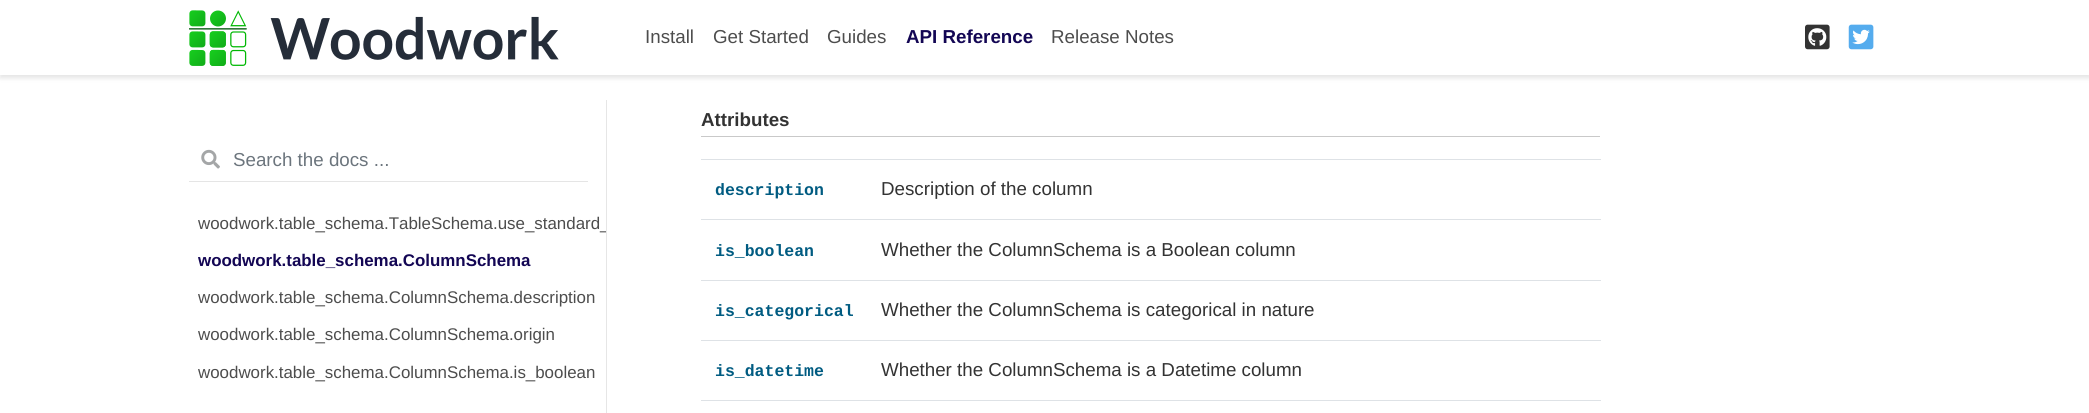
import math
import cairo



def rounded_rect(context, x, y, w, h, r):
    context.new_sub_path()
    for i, (u, v) in enumerate([(x + w - r, y + h - r), (x + r, y + h - r), (x + r, y + r), (x + w - r, y + r)]):
        context.arc(u, v, r, i * math.pi / 2, (i + 1) * math.pi / 2)
    context.close_path()


def draw_shadow(context, x, y, w, h, r, blur, alpha):
    context.push_group_with_content(cairo.Content.ALPHA)
    context.set_operator(cairo.Operator.SOURCE)
    for i in range(15, -16, -2):
        e = blur * i / 6
        if min(w, h) + 2 * e > 0:
            context.set_source_rgba(0, 0, 0, alpha * math.erfc((i - 1) / 8.5) / 2)
            rounded_rect(context, x - e, y - e, w + 2 * e, h + 2 * e, max(0, min(r + e + blur * .6, min(w, h) / 2 + e)))
            context.fill()
    context.mask(context.pop_group())


def draw_image(context, path, x, y, w, h):
    context.save()
    context.set_source_surface(cairo.ImageSurface.create_from_png(path), x, y)
    context.rectangle(x, y, w, h)
    context.fill()
    context.restore()


def draw(context):
    context.set_source_rgb(1, 1, 1)
    context.paint()
    context.set_source_rgb(0, 0, 0)
    draw_shadow(context, 0, 3, 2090, 75, 0, 2.5, 0.11)
    context.set_source_rgb(1, 1, 1)
    context.rectangle(0, 0, 2089, 75)
    context.fill()
    draw_image(context, "images/1.png", 189, 10, 370, 56)
    draw_image(context, "images/2.png", 1805, 24, 25, 26)
    draw_image(context, "images/3.png", 1848, 24, 26, 26)
    context.set_source_rgb(230 / 255, 230 / 255, 230 / 255)
    context.rectangle(606, 100, 1, 313)
    context.fill()
    draw_image(context, "images/4.png", 201, 149, 19, 20)
    context.set_source_rgb(229 / 255, 229 / 255, 229 / 255)
    context.rectangle(189, 181, 399, 1)
    context.fill()
    context.set_source_rgb(201 / 255, 201 / 255, 201 / 255)
    context.rectangle(701, 136, 899, 1)
    context.fill()
    context.set_source_rgb(222 / 255, 226 / 255, 230 / 255)
    context.rectangle(701, 159, 900, 1)
    context.fill()
    context.rectangle(701, 219, 900, 1)
    context.fill()
    context.rectangle(701, 280, 900, 1)
    context.fill()
    context.rectangle(701, 340, 900, 1)
    context.fill()
    context.rectangle(701, 400, 900, 1)
    context.fill()
    context.select_font_face("Liberation Sans")
    context.set_font_size(18.75)
    context.set_source_rgb(77 / 255, 77 / 255, 77 / 255)
    context.move_to(645, 43)
    context.show_text("Install")
    context.move_to(713, 43)
    context.show_text("Get Started")
    context.move_to(827, 43)
    context.show_text("Guides")
    context.select_font_face("Liberation Sans", cairo.FontSlant.NORMAL, cairo.FontWeight.BOLD)
    context.set_source_rgb(19 / 255, 6 / 255, 84 / 255)
    context.move_to(906, 43)
    context.show_text("API Reference")
    context.select_font_face("Liberation Sans")
    context.set_source_rgb(77 / 255, 77 / 255, 77 / 255)
    context.move_to(1051, 43)
    context.show_text("Release Notes")
    context.set_source_rgb(108 / 255, 117 / 255, 125 / 255)
    context.move_to(233, 166)
    context.show_text("Search the docs ...")
    context.save()
    context.rectangle(170, 201, 436, 208)
    context.clip()
    context.set_font_size(16.9)
    context.set_source_rgb(77 / 255, 77 / 255, 77 / 255)
    context.move_to(198, 229)
    context.show_text("woodwork.table_schema.TableSchema.use_standard_")
    context.restore()
    context.select_font_face("Liberation Sans", cairo.FontSlant.NORMAL, cairo.FontWeight.BOLD)
    context.set_font_size(16.9)
    context.set_source_rgb(19 / 255, 6 / 255, 84 / 255)
    context.move_to(198, 266)
    context.show_text("woodwork.table_schema.ColumnSchema")
    context.select_font_face("Liberation Sans")
    context.set_source_rgb(77 / 255, 77 / 255, 77 / 255)
    context.move_to(198, 303)
    context.show_text("woodwork.table_schema.ColumnSchema.description")
    context.move_to(198, 340)
    context.show_text("woodwork.table_schema.ColumnSchema.origin")
    context.move_to(198, 378)
    context.show_text("woodwork.table_schema.ColumnSchema.is_boolean")
    context.select_font_face("Liberation Sans", cairo.FontSlant.NORMAL, cairo.FontWeight.BOLD)
    context.set_font_size(18.75)
    context.set_source_rgb(51 / 255, 51 / 255, 51 / 255)
    context.move_to(701, 126)
    context.show_text("Attributes")
    context.select_font_face("Liberation Mono", cairo.FontSlant.NORMAL, cairo.FontWeight.BOLD)
    context.set_font_size(16.5)
    context.set_source_rgb(0, 91 / 255, 129 / 255)
    context.move_to(715, 195)
    context.show_text("description")
    context.select_font_face("Liberation Sans")
    context.set_font_size(18.75)
    context.set_source_rgb(51 / 255, 51 / 255, 51 / 255)
    context.move_to(881, 195)
    context.show_text("Description of the column")
    context.select_font_face("Liberation Mono", cairo.FontSlant.NORMAL, cairo.FontWeight.BOLD)
    context.set_font_size(16.5)
    context.set_source_rgb(0, 91 / 255, 129 / 255)
    context.move_to(715, 256)
    context.show_text("is_boolean")
    context.select_font_face("Liberation Sans")
    context.set_font_size(18.75)
    context.set_source_rgb(51 / 255, 51 / 255, 51 / 255)
    context.move_to(881, 256)
    context.show_text("Whether the ColumnSchema is a Boolean column")
    context.select_font_face("Liberation Mono", cairo.FontSlant.NORMAL, cairo.FontWeight.BOLD)
    context.set_font_size(16.5)
    context.set_source_rgb(0, 91 / 255, 129 / 255)
    context.move_to(715, 316)
    context.show_text("is_categorical")
    context.select_font_face("Liberation Sans")
    context.set_font_size(18.75)
    context.set_source_rgb(51 / 255, 51 / 255, 51 / 255)
    context.move_to(881, 316)
    context.show_text("Whether the ColumnSchema is categorical in nature")
    context.select_font_face("Liberation Mono", cairo.FontSlant.NORMAL, cairo.FontWeight.BOLD)
    context.set_font_size(16.5)
    context.set_source_rgb(0, 91 / 255, 129 / 255)
    context.move_to(715, 376)
    context.show_text("is_datetime")
    context.select_font_face("Liberation Sans")
    context.set_font_size(18.75)
    context.set_source_rgb(51 / 255, 51 / 255, 51 / 255)
    context.move_to(881, 376)
    context.show_text("Whether the ColumnSchema is a Datetime column")


surface = cairo.ImageSurface(cairo.Format.RGB24, 2089, 413)
context = cairo.Context(surface)
options = cairo.FontOptions()
options.set_hint_metrics(cairo.HintMetrics.OFF)
options.set_hint_style(cairo.HintStyle.NONE)
context.set_font_options(options)
context.set_miter_limit(4)
draw(context)
surface.write_to_png("out.png")
